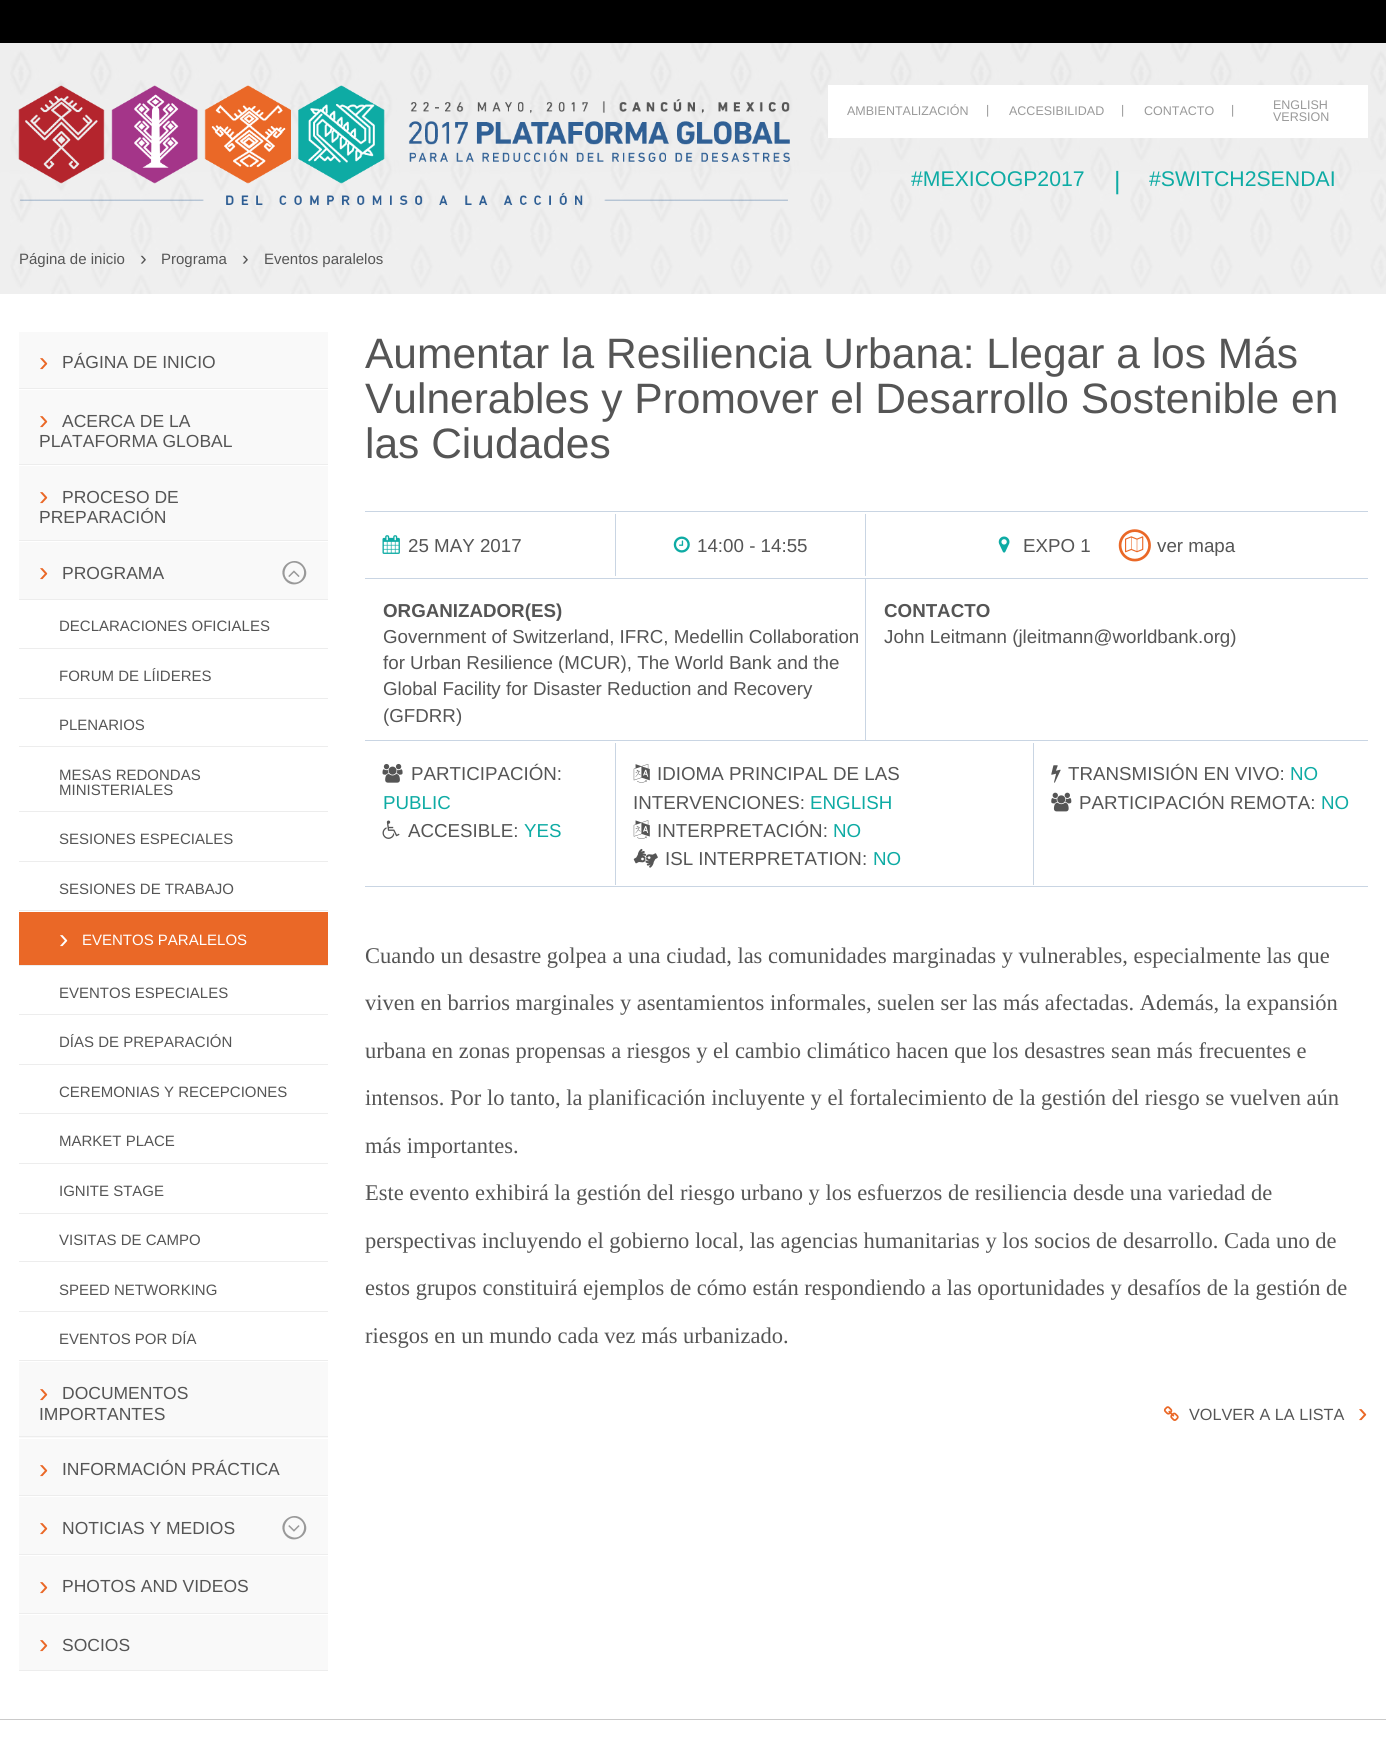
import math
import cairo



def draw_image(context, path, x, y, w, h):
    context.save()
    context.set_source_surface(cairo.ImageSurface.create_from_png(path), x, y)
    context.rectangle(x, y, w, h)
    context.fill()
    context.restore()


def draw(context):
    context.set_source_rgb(1, 1, 1)
    context.paint()
    draw_image(context, "images/1.png", 0, 43, 1386, 251)
    context.set_source_rgb(0, 0, 0)
    context.rectangle(0, 0, 1386, 43)
    context.fill()
    draw_image(context, "images/2.png", 18, 85, 772, 120)
    context.set_source_rgb(1, 1, 1)
    context.rectangle(828, 85, 540, 53)
    context.fill()
    context.set_source_rgb(249 / 255, 249 / 255, 249 / 255)
    context.rectangle(19, 332, 309, 56)
    context.fill()
    context.set_source_rgb(237 / 255, 237 / 255, 237 / 255)
    context.rectangle(19, 388, 309, 1)
    context.fill()
    context.set_source_rgb(249 / 255, 249 / 255, 249 / 255)
    context.rectangle(19, 390, 309, 74)
    context.fill()
    context.set_source_rgb(237 / 255, 237 / 255, 237 / 255)
    context.rectangle(19, 464, 309, 1)
    context.fill()
    context.set_source_rgb(249 / 255, 249 / 255, 249 / 255)
    context.rectangle(19, 466, 309, 74)
    context.fill()
    context.set_source_rgb(237 / 255, 237 / 255, 237 / 255)
    context.rectangle(19, 540, 309, 1)
    context.fill()
    context.set_source_rgb(249 / 255, 249 / 255, 249 / 255)
    context.rectangle(19, 542, 309, 57)
    context.fill()
    context.set_source_rgb(237 / 255, 237 / 255, 237 / 255)
    context.rectangle(19, 599, 309, 1)
    context.fill()
    context.set_source_rgb(153 / 255, 153 / 255, 153 / 255)
    context.new_path()
    context.move_to(298, 563.5)
    context.curve_to(286.5, 558.5, 278.5, 576.5, 290.5, 581.5)
    context.curve_to(302.5, 587, 310, 569, 298, 563.5)
    context.close_path()
    context.move_to(304.5, 567)
    context.curve_to(312.5, 580, 292, 592, 284, 578.5)
    context.curve_to(276.5, 565, 296.5, 553.5, 304.5, 567)
    context.close_path()
    context.fill()
    draw_image(context, "images/3.png", 288, 570, 12, 7)
    context.set_source_rgb(237 / 255, 237 / 255, 237 / 255)
    context.rectangle(19, 648, 309, 1)
    context.fill()
    context.rectangle(19, 698, 309, 1)
    context.fill()
    context.rectangle(19, 746, 309, 1)
    context.fill()
    context.rectangle(19, 811, 309, 1)
    context.fill()
    context.rectangle(19, 861, 309, 1)
    context.fill()
    context.rectangle(19, 910, 309, 1)
    context.fill()
    context.set_source_rgb(234 / 255, 104 / 255, 39 / 255)
    context.rectangle(19, 912, 309, 53)
    context.fill()
    context.set_source_rgb(237 / 255, 237 / 255, 237 / 255)
    context.rectangle(19, 965, 309, 1)
    context.fill()
    context.rectangle(19, 1014, 309, 1)
    context.fill()
    context.rectangle(19, 1064, 309, 1)
    context.fill()
    context.rectangle(19, 1113, 309, 1)
    context.fill()
    context.rectangle(19, 1163, 309, 1)
    context.fill()
    context.rectangle(19, 1213, 309, 1)
    context.fill()
    context.rectangle(19, 1261, 309, 1)
    context.fill()
    context.rectangle(19, 1311, 309, 1)
    context.fill()
    context.rectangle(19, 1360, 309, 1)
    context.fill()
    context.set_source_rgb(249 / 255, 249 / 255, 249 / 255)
    context.rectangle(19, 1362, 309, 76)
    context.fill()
    context.set_source_rgb(237 / 255, 237 / 255, 237 / 255)
    context.rectangle(19, 1436, 309, 1)
    context.fill()
    context.set_source_rgb(249 / 255, 249 / 255, 249 / 255)
    context.rectangle(19, 1439, 309, 56)
    context.fill()
    context.set_source_rgb(237 / 255, 237 / 255, 237 / 255)
    context.rectangle(19, 1495, 309, 1)
    context.fill()
    context.set_source_rgb(249 / 255, 249 / 255, 249 / 255)
    context.rectangle(19, 1497, 309, 57)
    context.fill()
    context.set_source_rgb(237 / 255, 237 / 255, 237 / 255)
    context.rectangle(19, 1554, 309, 1)
    context.fill()
    context.set_source_rgb(153 / 255, 153 / 255, 153 / 255)
    context.new_path()
    context.move_to(298, 1518.5)
    context.curve_to(286.5, 1513.5, 278.5, 1531.5, 290.5, 1536.5)
    context.curve_to(302.5, 1542, 310, 1524, 298, 1518.5)
    context.close_path()
    context.move_to(304.5, 1522)
    context.curve_to(312.5, 1535, 292, 1547, 284, 1533.5)
    context.curve_to(276.5, 1520, 296.5, 1508.5, 304.5, 1522)
    context.close_path()
    context.fill()
    draw_image(context, "images/4.png", 288, 1525, 12, 7)
    context.set_source_rgb(249 / 255, 249 / 255, 249 / 255)
    context.rectangle(19, 1556, 309, 57)
    context.fill()
    context.set_source_rgb(237 / 255, 237 / 255, 237 / 255)
    context.rectangle(19, 1613, 309, 1)
    context.fill()
    context.set_source_rgb(249 / 255, 249 / 255, 249 / 255)
    context.rectangle(19, 1615, 309, 55)
    context.fill()
    context.set_source_rgb(237 / 255, 237 / 255, 237 / 255)
    context.rectangle(19, 1670, 309, 1)
    context.fill()
    context.set_source_rgb(201 / 255, 213 / 255, 227 / 255)
    context.rectangle(365, 511, 1003, 1)
    context.fill()
    context.rectangle(365, 578, 1003, 1)
    context.fill()
    context.rectangle(615, 514, 1, 62)
    context.fill()
    draw_image(context, "images/5.png", 382, 535, 18, 19)
    context.rectangle(865, 514, 1, 62)
    context.fill()
    draw_image(context, "images/6.png", 673, 536, 17, 17)
    draw_image(context, "images/7.png", 998, 536, 12, 17)
    draw_image(context, "images/8.png", 1118, 529, 33, 33)
    draw_image(context, "images/9.png", 1125, 536, 19, 17)
    context.rectangle(865, 579, 1, 161)
    context.fill()
    context.rectangle(365, 740, 1003, 1)
    context.fill()
    context.rectangle(365, 886, 1003, 1)
    context.fill()
    context.rectangle(615, 743, 1, 142)
    context.fill()
    draw_image(context, "images/10.png", 382, 763, 21, 20)
    draw_image(context, "images/11.png", 382, 820, 18, 19)
    context.rectangle(1033, 743, 1, 142)
    context.fill()
    draw_image(context, "images/12.png", 633, 764, 17, 19)
    draw_image(context, "images/13.png", 633, 820, 17, 19)
    draw_image(context, "images/14.png", 633, 848, 25, 20)
    draw_image(context, "images/15.png", 1051, 765, 10, 18)
    draw_image(context, "images/16.png", 1051, 792, 21, 20)
    draw_image(context, "images/17.png", 1163, 1406, 16, 15)
    context.set_source_rgb(202 / 255, 202 / 255, 202 / 255)
    context.rectangle(0, 1719, 1386, 1)
    context.fill()
    context.select_font_face("Liberation Sans")
    context.set_font_size(12.5)
    context.set_source_rgb(153 / 255, 153 / 255, 153 / 255)
    context.move_to(847, 115)
    context.show_text("AMBIENTALIZACIÓN")
    context.move_to(986, 114)
    context.show_text("|")
    context.move_to(1009, 115)
    context.show_text("ACCESIBILIDAD")
    context.move_to(1121, 114)
    context.show_text("|")
    context.move_to(1144, 115)
    context.show_text("CONTACTO")
    context.move_to(1231, 114)
    context.show_text("|")
    context.move_to(1273, 109)
    context.show_text("ENGLISH")
    context.move_to(1273, 121)
    context.show_text("VERSION")
    context.set_font_size(21.25)
    context.set_source_rgb(14 / 255, 171 / 255, 164 / 255)
    context.move_to(911, 186)
    context.show_text("#MEXICOGP2017")
    context.set_font_size(25)
    context.move_to(1114, 189)
    context.show_text("|")
    context.set_font_size(21.25)
    context.move_to(1149, 186)
    context.show_text("#SWITCH2SENDAI")
    context.set_font_size(15)
    context.set_source_rgb(85 / 255, 85 / 255, 85 / 255)
    context.move_to(19, 264)
    context.show_text("Página de inicio")
    context.set_font_size(20)
    context.move_to(140, 265)
    context.show_text("›")
    context.set_font_size(15)
    context.move_to(161, 264)
    context.show_text("Programa")
    context.set_font_size(20)
    context.move_to(242, 265)
    context.show_text("›")
    context.set_font_size(15)
    context.move_to(264, 264)
    context.show_text("Eventos paralelos")
    context.set_font_size(28)
    context.set_source_rgb(234 / 255, 104 / 255, 39 / 255)
    context.move_to(39, 371)
    context.show_text("›")
    context.set_font_size(17.5)
    context.set_source_rgb(85 / 255, 85 / 255, 85 / 255)
    context.move_to(62, 368)
    context.show_text("PÁGINA DE INICIO")
    context.set_font_size(28)
    context.set_source_rgb(234 / 255, 104 / 255, 39 / 255)
    context.move_to(39, 429)
    context.show_text("›")
    context.set_font_size(17.5)
    context.set_source_rgb(85 / 255, 85 / 255, 85 / 255)
    context.move_to(62, 427)
    context.show_text("ACERCA DE LA")
    context.move_to(39, 447)
    context.show_text("PLATAFORMA GLOBAL")
    context.set_font_size(28)
    context.set_source_rgb(234 / 255, 104 / 255, 39 / 255)
    context.move_to(39, 505)
    context.show_text("›")
    context.set_font_size(17.5)
    context.set_source_rgb(85 / 255, 85 / 255, 85 / 255)
    context.move_to(62, 503)
    context.show_text("PROCESO DE")
    context.move_to(39, 523)
    context.show_text("PREPARACIÓN")
    context.set_font_size(28)
    context.set_source_rgb(234 / 255, 104 / 255, 39 / 255)
    context.move_to(39, 581)
    context.show_text("›")
    context.set_font_size(17.5)
    context.set_source_rgb(85 / 255, 85 / 255, 85 / 255)
    context.move_to(62, 579)
    context.show_text("PROGRAMA")
    context.set_font_size(15)
    context.move_to(59, 631)
    context.show_text("DECLARACIONES OFICIALES")
    context.move_to(59, 681)
    context.show_text("FORUM DE LÍIDERES")
    context.move_to(59, 730)
    context.show_text("PLENARIOS")
    context.move_to(59, 780)
    context.show_text("MESAS REDONDAS")
    context.move_to(59, 795)
    context.show_text("MINISTERIALES")
    context.move_to(59, 844)
    context.show_text("SESIONES ESPECIALES")
    context.move_to(59, 894)
    context.show_text("SESIONES DE TRABAJO")
    context.set_font_size(28)
    context.set_source_rgb(1, 1, 1)
    context.move_to(59, 948)
    context.show_text("›")
    context.set_font_size(15)
    context.move_to(82, 945)
    context.show_text("EVENTOS PARALELOS")
    context.set_source_rgb(85 / 255, 85 / 255, 85 / 255)
    context.move_to(59, 998)
    context.show_text("EVENTOS ESPECIALES")
    context.move_to(59, 1047)
    context.show_text("DÍAS DE PREPARACIÓN")
    context.move_to(59, 1097)
    context.show_text("CEREMONIAS Y RECEPCIONES")
    context.move_to(59, 1146)
    context.show_text("MARKET PLACE")
    context.move_to(59, 1196)
    context.show_text("IGNITE STAGE")
    context.move_to(59, 1245)
    context.show_text("VISITAS DE CAMPO")
    context.move_to(59, 1295)
    context.show_text("SPEED NETWORKING")
    context.move_to(59, 1344)
    context.show_text("EVENTOS POR DÍA")
    context.set_font_size(28)
    context.set_source_rgb(234 / 255, 104 / 255, 39 / 255)
    context.move_to(39, 1402)
    context.show_text("›")
    context.set_font_size(17.5)
    context.set_source_rgb(85 / 255, 85 / 255, 85 / 255)
    context.move_to(62, 1399)
    context.show_text("DOCUMENTOS")
    context.move_to(39, 1420)
    context.show_text("IMPORTANTES")
    context.set_font_size(28)
    context.set_source_rgb(234 / 255, 104 / 255, 39 / 255)
    context.move_to(39, 1478)
    context.show_text("›")
    context.set_font_size(17.5)
    context.set_source_rgb(85 / 255, 85 / 255, 85 / 255)
    context.move_to(62, 1475)
    context.show_text("INFORMACIÓN PRÁCTICA")
    context.set_font_size(28)
    context.set_source_rgb(234 / 255, 104 / 255, 39 / 255)
    context.move_to(39, 1536)
    context.show_text("›")
    context.set_font_size(17.5)
    context.set_source_rgb(85 / 255, 85 / 255, 85 / 255)
    context.move_to(62, 1534)
    context.show_text("NOTICIAS Y MEDIOS")
    context.set_font_size(28)
    context.set_source_rgb(234 / 255, 104 / 255, 39 / 255)
    context.move_to(39, 1595)
    context.show_text("›")
    context.set_font_size(17.5)
    context.set_source_rgb(85 / 255, 85 / 255, 85 / 255)
    context.move_to(62, 1592)
    context.show_text("PHOTOS AND VIDEOS")
    context.set_font_size(28)
    context.set_source_rgb(234 / 255, 104 / 255, 39 / 255)
    context.move_to(39, 1653)
    context.show_text("›")
    context.set_font_size(17.5)
    context.set_source_rgb(85 / 255, 85 / 255, 85 / 255)
    context.move_to(62, 1651)
    context.show_text("SOCIOS")
    context.set_font_size(42.5)
    context.move_to(365, 368)
    context.show_text("Aumentar la Resiliencia Urbana: Llegar a los Más")
    context.move_to(365, 413)
    context.show_text("Vulnerables y Promover el Desarrollo Sostenible en")
    context.move_to(365, 458)
    context.show_text("las Ciudades")
    context.set_font_size(18.75)
    context.move_to(408, 552)
    context.show_text("25 MAY 2017")
    context.move_to(697, 552)
    context.show_text("14:00 - 14:55")
    context.move_to(1023, 552)
    context.show_text("EXPO 1")
    context.move_to(1157, 552)
    context.show_text("ver mapa")
    context.select_font_face("Liberation Sans", cairo.FontSlant.NORMAL, cairo.FontWeight.BOLD)
    context.move_to(383, 617)
    context.show_text("ORGANIZADOR(ES)")
    context.select_font_face("Liberation Sans")
    context.move_to(383, 643)
    context.show_text("Government of Switzerland, IFRC, Medellin Collaboration")
    context.move_to(383, 669)
    context.show_text("for Urban Resilience (MCUR), The World Bank and the")
    context.move_to(383, 695)
    context.show_text("Global Facility for Disaster Reduction and Recovery")
    context.move_to(383, 722)
    context.show_text("(GFDRR)")
    context.select_font_face("Liberation Sans", cairo.FontSlant.NORMAL, cairo.FontWeight.BOLD)
    context.move_to(884, 617)
    context.show_text("CONTACTO")
    context.select_font_face("Liberation Sans")
    context.move_to(884, 643)
    context.show_text("John Leitmann (jleitmann@worldbank.org)")
    context.move_to(411, 780)
    context.show_text("PARTICIPACIÓN:")
    context.set_source_rgb(14 / 255, 171 / 255, 164 / 255)
    context.move_to(383, 809)
    context.show_text("PUBLIC")
    context.set_source_rgb(85 / 255, 85 / 255, 85 / 255)
    context.move_to(408, 837)
    context.show_text("ACCESIBLE:")
    context.set_source_rgb(14 / 255, 171 / 255, 164 / 255)
    context.move_to(524, 837)
    context.show_text("YES")
    context.set_source_rgb(85 / 255, 85 / 255, 85 / 255)
    context.move_to(657, 780)
    context.show_text("IDIOMA PRINCIPAL DE LAS")
    context.move_to(633, 809)
    context.show_text("INTERVENCIONES:")
    context.set_source_rgb(14 / 255, 171 / 255, 164 / 255)
    context.move_to(810, 809)
    context.show_text("ENGLISH")
    context.set_source_rgb(85 / 255, 85 / 255, 85 / 255)
    context.move_to(657, 837)
    context.show_text("INTERPRETACIÓN:")
    context.set_source_rgb(14 / 255, 171 / 255, 164 / 255)
    context.move_to(833, 837)
    context.show_text("NO")
    context.set_source_rgb(85 / 255, 85 / 255, 85 / 255)
    context.move_to(665, 865)
    context.show_text("ISL INTERPRETATION:")
    context.set_source_rgb(14 / 255, 171 / 255, 164 / 255)
    context.move_to(873, 865)
    context.show_text("NO")
    context.set_source_rgb(85 / 255, 85 / 255, 85 / 255)
    context.move_to(1068, 780)
    context.show_text("TRANSMISIÓN EN VIVO:")
    context.set_source_rgb(14 / 255, 171 / 255, 164 / 255)
    context.move_to(1290, 780)
    context.show_text("NO")
    context.set_source_rgb(85 / 255, 85 / 255, 85 / 255)
    context.move_to(1079, 809)
    context.show_text("PARTICIPACIÓN REMOTA:")
    context.set_source_rgb(14 / 255, 171 / 255, 164 / 255)
    context.move_to(1321, 809)
    context.show_text("NO")
    context.select_font_face("Liberation Serif")
    context.set_font_size(22.5)
    context.set_source_rgb(85 / 255, 85 / 255, 85 / 255)
    context.move_to(365, 963)
    context.show_text("Cuando un desastre golpea a una ciudad, las comunidades marginadas y vulnerables, especialmente las que")
    context.move_to(365, 1010)
    context.show_text("viven en barrios marginales y asentamientos informales, suelen ser las más afectadas. Además, la expansión")
    context.move_to(365, 1058)
    context.show_text("urbana en zonas propensas a riesgos y el cambio climático hacen que los desastres sean más frecuentes e")
    context.move_to(365, 1105)
    context.show_text("intensos. Por lo tanto, la planificación incluyente y el fortalecimiento de la gestión del riesgo se vuelven aún")
    context.move_to(365, 1153)
    context.show_text("más importantes.")
    context.move_to(365, 1200)
    context.show_text("Este evento exhibirá la gestión del riesgo urbano y los esfuerzos de resiliencia desde una variedad de")
    context.move_to(365, 1248)
    context.show_text("perspectivas incluyendo el gobierno local, las agencias humanitarias y los socios de desarrollo. Cada uno de")
    context.move_to(365, 1295)
    context.show_text("estos grupos constituirá ejemplos de cómo están respondiendo a las oportunidades y desafíos de la gestión de")
    context.move_to(365, 1343)
    context.show_text("riesgos en un mundo cada vez más urbanizado.")
    context.select_font_face("Liberation Sans")
    context.set_font_size(16.25)
    context.move_to(1189, 1420)
    context.show_text("VOLVER A LA LISTA")
    context.set_font_size(28)
    context.set_source_rgb(234 / 255, 104 / 255, 39 / 255)
    context.move_to(1358, 1422)
    context.show_text("›")


surface = cairo.ImageSurface(cairo.Format.RGB24, 1386, 1738)
context = cairo.Context(surface)
options = cairo.FontOptions()
options.set_hint_metrics(cairo.HintMetrics.OFF)
options.set_hint_style(cairo.HintStyle.NONE)
context.set_font_options(options)
context.set_miter_limit(4)
draw(context)
surface.write_to_png("out.png")
